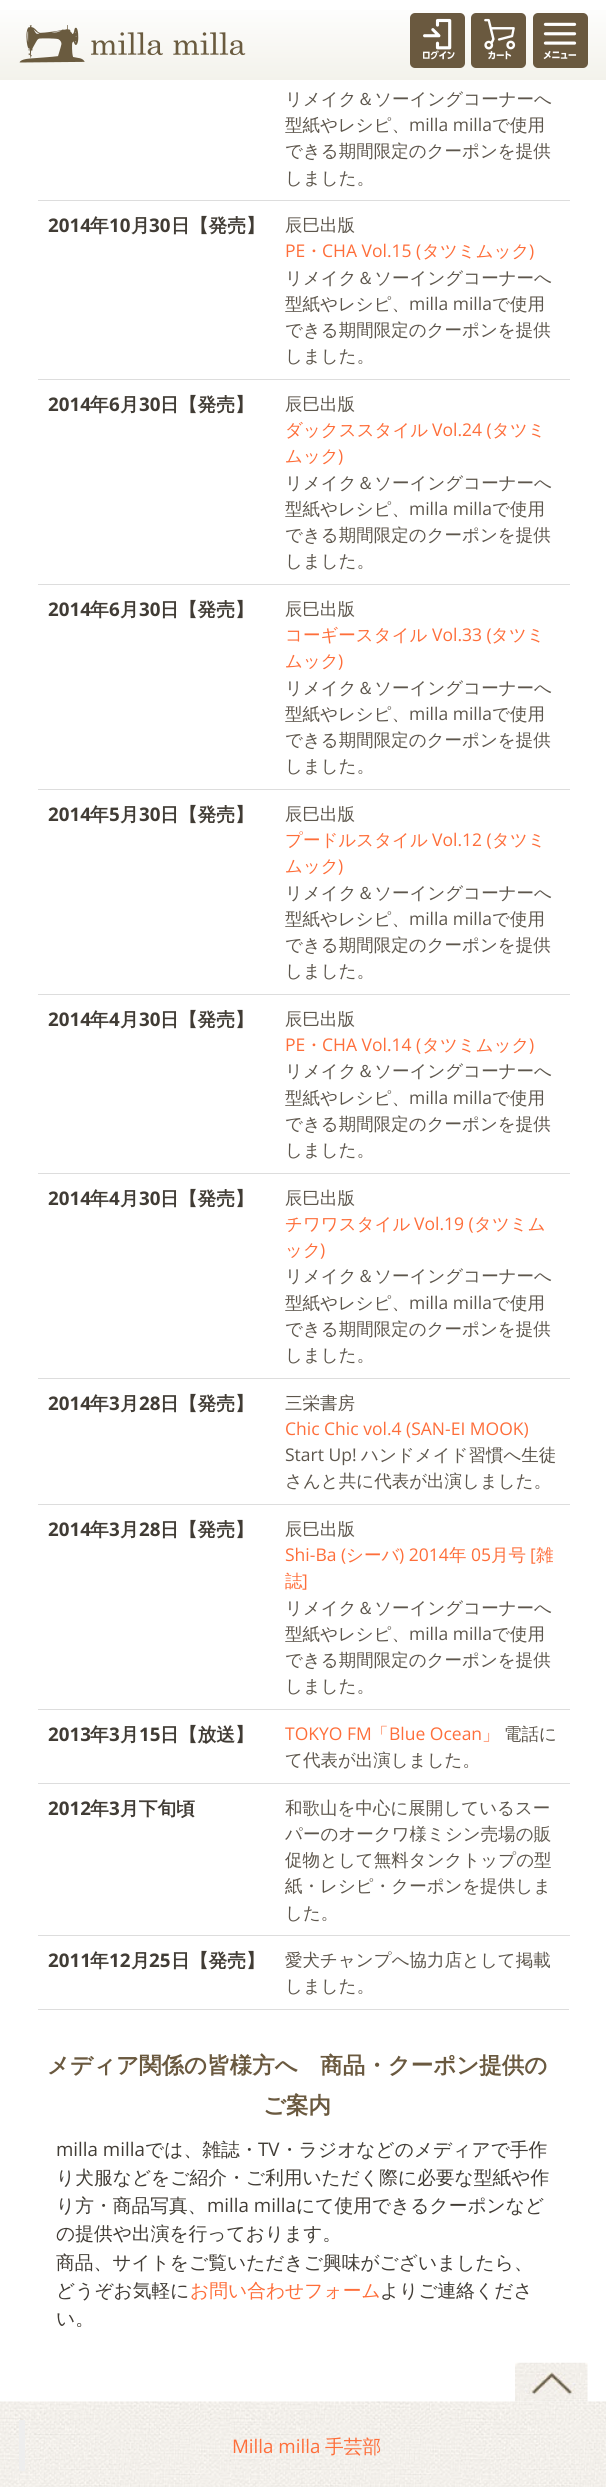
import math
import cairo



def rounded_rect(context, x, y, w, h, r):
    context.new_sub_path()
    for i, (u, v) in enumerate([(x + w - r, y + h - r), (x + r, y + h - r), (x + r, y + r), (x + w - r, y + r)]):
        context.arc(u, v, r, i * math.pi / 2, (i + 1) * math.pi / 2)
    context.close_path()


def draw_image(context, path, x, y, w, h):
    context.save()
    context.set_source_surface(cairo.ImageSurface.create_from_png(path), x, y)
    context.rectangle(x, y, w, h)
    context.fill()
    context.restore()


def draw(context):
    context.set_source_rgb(1, 1, 1)
    context.paint()
    gradient = cairo.LinearGradient(303, 0, 303, 80)
    gradient.add_color_stop_rgba(0, 1, 1, 1, 1)
    gradient.add_color_stop_rgba(1, 243 / 255, 242 / 255, 235 / 255, 1)
    context.set_source(gradient)
    context.rectangle(0, 10, 606, 70)
    context.fill()
    draw_image(context, "images/1.png", 19, 25, 227, 38)
    context.set_source_rgb(106 / 255, 89 / 255, 63 / 255)
    rounded_rect(context, 410, 13, 55, 55, 5)
    context.fill()
    draw_image(context, "images/2.png", 423, 18, 32, 42)
    rounded_rect(context, 471, 13, 55, 55, 5)
    context.fill()
    draw_image(context, "images/3.png", 484, 18, 32, 42)
    rounded_rect(context, 533, 13, 55, 55, 5)
    context.fill()
    draw_image(context, "images/4.png", 543, 22, 34, 38)
    context.set_source_rgb(221 / 255, 221 / 255, 221 / 255)
    context.rectangle(38, 2009, 531, 1)
    context.fill()
    context.rectangle(38, 200, 532, 1)
    context.fill()
    context.rectangle(38, 379, 532, 1)
    context.fill()
    context.rectangle(38, 584, 532, 1)
    context.fill()
    context.rectangle(38, 789, 532, 1)
    context.fill()
    context.rectangle(38, 994, 532, 1)
    context.fill()
    context.rectangle(38, 1173, 532, 1)
    context.fill()
    context.rectangle(38, 1378, 532, 1)
    context.fill()
    context.rectangle(38, 1504, 532, 1)
    context.fill()
    context.rectangle(38, 1709, 532, 1)
    context.fill()
    context.rectangle(38, 1783, 532, 1)
    context.fill()
    context.rectangle(38, 1935, 532, 1)
    context.fill()
    draw_image(context, "images/6.png", 0, 2401, 606, 86)
    draw_image(context, "images/5.png", 515, 2362, 73, 40)
    context.set_source_rgb(238 / 255, 238 / 255, 238 / 255)
    context.rectangle(19, 2420, 6, 51)
    context.fill()
    context.select_font_face("WenQuanYi Zen Hei Medium")
    context.set_font_size(17.5)
    context.set_source_rgb(93 / 255, 86 / 255, 76 / 255)
    context.move_to(285, 105)
    context.show_text("リメイク＆ソーイングコーナーへ")
    context.move_to(285, 131)
    context.show_text("型紙やレシピ、")
    context.select_font_face("Open Sans")
    context.move_to(409, 131)
    context.show_text("milla milla")
    context.select_font_face("WenQuanYi Zen Hei Medium")
    context.move_to(492, 131)
    context.show_text("で使用")
    context.move_to(285, 157)
    context.show_text("できる期間限定のクーポンを提供")
    context.move_to(285, 184)
    context.show_text("しました。")
    context.select_font_face("Open Sans", cairo.FontSlant.NORMAL, cairo.FontWeight.BOLD)
    context.set_font_size(18.75)
    context.set_source_rgb(65 / 255, 60 / 255, 53 / 255)
    context.move_to(48, 232)
    context.show_text("2014")
    context.select_font_face("WenQuanYi Zen Hei", cairo.FontSlant.NORMAL, cairo.FontWeight.BOLD)
    context.move_to(90, 232)
    context.show_text("年")
    context.select_font_face("Open Sans", cairo.FontSlant.NORMAL, cairo.FontWeight.BOLD)
    context.move_to(109, 232)
    context.show_text("10")
    context.select_font_face("WenQuanYi Zen Hei", cairo.FontSlant.NORMAL, cairo.FontWeight.BOLD)
    context.move_to(131, 232)
    context.show_text("月")
    context.select_font_face("Open Sans", cairo.FontSlant.NORMAL, cairo.FontWeight.BOLD)
    context.move_to(149, 232)
    context.show_text("30")
    context.select_font_face("WenQuanYi Zen Hei", cairo.FontSlant.NORMAL, cairo.FontWeight.BOLD)
    context.move_to(171, 232)
    context.show_text("日【発売】")
    context.select_font_face("WenQuanYi Zen Hei Medium")
    context.set_font_size(17.5)
    context.set_source_rgb(93 / 255, 86 / 255, 76 / 255)
    context.move_to(285, 231)
    context.show_text("辰巳出版")
    context.select_font_face("Open Sans")
    context.set_source_rgb(254 / 255, 110 / 255, 58 / 255)
    context.move_to(285, 257)
    context.show_text("PE")
    context.select_font_face("WenQuanYi Zen Hei Medium")
    context.move_to(305, 257)
    context.show_text("・")
    context.select_font_face("Open Sans")
    context.move_to(322, 257)
    context.show_text("CHA Vol.15 (")
    context.select_font_face("WenQuanYi Zen Hei Medium")
    context.move_to(422, 257)
    context.show_text("タツミムック")
    context.select_font_face("Open Sans")
    context.move_to(529, 257)
    context.show_text(")")
    context.select_font_face("WenQuanYi Zen Hei Medium")
    context.set_source_rgb(93 / 255, 86 / 255, 76 / 255)
    context.move_to(285, 284)
    context.show_text("リメイク＆ソーイングコーナーへ")
    context.move_to(285, 310)
    context.show_text("型紙やレシピ、")
    context.select_font_face("Open Sans")
    context.move_to(409, 310)
    context.show_text("milla milla")
    context.select_font_face("WenQuanYi Zen Hei Medium")
    context.move_to(492, 310)
    context.show_text("で使用")
    context.move_to(285, 336)
    context.show_text("できる期間限定のクーポンを提供")
    context.move_to(285, 362)
    context.show_text("しました。")
    context.select_font_face("Open Sans", cairo.FontSlant.NORMAL, cairo.FontWeight.BOLD)
    context.set_font_size(18.75)
    context.set_source_rgb(65 / 255, 60 / 255, 53 / 255)
    context.move_to(48, 411)
    context.show_text("2014")
    context.select_font_face("WenQuanYi Zen Hei", cairo.FontSlant.NORMAL, cairo.FontWeight.BOLD)
    context.move_to(90, 411)
    context.show_text("年")
    context.select_font_face("Open Sans", cairo.FontSlant.NORMAL, cairo.FontWeight.BOLD)
    context.move_to(109, 411)
    context.show_text("6")
    context.select_font_face("WenQuanYi Zen Hei", cairo.FontSlant.NORMAL, cairo.FontWeight.BOLD)
    context.move_to(120, 411)
    context.show_text("月")
    context.select_font_face("Open Sans", cairo.FontSlant.NORMAL, cairo.FontWeight.BOLD)
    context.move_to(139, 411)
    context.show_text("30")
    context.select_font_face("WenQuanYi Zen Hei", cairo.FontSlant.NORMAL, cairo.FontWeight.BOLD)
    context.move_to(160, 411)
    context.show_text("日【発売】")
    context.select_font_face("WenQuanYi Zen Hei Medium")
    context.set_font_size(17.5)
    context.set_source_rgb(93 / 255, 86 / 255, 76 / 255)
    context.move_to(285, 410)
    context.show_text("辰巳出版")
    context.set_source_rgb(254 / 255, 110 / 255, 58 / 255)
    context.move_to(285, 436)
    context.show_text("ダックススタイル")
    context.select_font_face("Open Sans")
    context.move_to(432, 436)
    context.show_text("Vol.24 (")
    context.select_font_face("WenQuanYi Zen Hei Medium")
    context.move_to(492, 436)
    context.show_text("タツミ")
    context.move_to(285, 462)
    context.show_text("ムック")
    context.select_font_face("Open Sans")
    context.move_to(338, 462)
    context.show_text(")")
    context.select_font_face("WenQuanYi Zen Hei Medium")
    context.set_source_rgb(93 / 255, 86 / 255, 76 / 255)
    context.move_to(285, 489)
    context.show_text("リメイク＆ソーイングコーナーへ")
    context.move_to(285, 515)
    context.show_text("型紙やレシピ、")
    context.select_font_face("Open Sans")
    context.move_to(409, 515)
    context.show_text("milla milla")
    context.select_font_face("WenQuanYi Zen Hei Medium")
    context.move_to(492, 515)
    context.show_text("で使用")
    context.move_to(285, 541)
    context.show_text("できる期間限定のクーポンを提供")
    context.move_to(285, 567)
    context.show_text("しました。")
    context.select_font_face("Open Sans", cairo.FontSlant.NORMAL, cairo.FontWeight.BOLD)
    context.set_font_size(18.75)
    context.set_source_rgb(65 / 255, 60 / 255, 53 / 255)
    context.move_to(48, 616)
    context.show_text("2014")
    context.select_font_face("WenQuanYi Zen Hei", cairo.FontSlant.NORMAL, cairo.FontWeight.BOLD)
    context.move_to(90, 616)
    context.show_text("年")
    context.select_font_face("Open Sans", cairo.FontSlant.NORMAL, cairo.FontWeight.BOLD)
    context.move_to(109, 616)
    context.show_text("6")
    context.select_font_face("WenQuanYi Zen Hei", cairo.FontSlant.NORMAL, cairo.FontWeight.BOLD)
    context.move_to(120, 616)
    context.show_text("月")
    context.select_font_face("Open Sans", cairo.FontSlant.NORMAL, cairo.FontWeight.BOLD)
    context.move_to(139, 616)
    context.show_text("30")
    context.select_font_face("WenQuanYi Zen Hei", cairo.FontSlant.NORMAL, cairo.FontWeight.BOLD)
    context.move_to(160, 616)
    context.show_text("日【発売】")
    context.select_font_face("WenQuanYi Zen Hei Medium")
    context.set_font_size(17.5)
    context.set_source_rgb(93 / 255, 86 / 255, 76 / 255)
    context.move_to(285, 615)
    context.show_text("辰巳出版")
    context.set_source_rgb(254 / 255, 110 / 255, 58 / 255)
    context.move_to(285, 641)
    context.show_text("コーギースタイル")
    context.select_font_face("Open Sans")
    context.move_to(432, 641)
    context.show_text("Vol.33 (")
    context.select_font_face("WenQuanYi Zen Hei Medium")
    context.move_to(491, 641)
    context.show_text("タツミ")
    context.move_to(285, 667)
    context.show_text("ムック")
    context.select_font_face("Open Sans")
    context.move_to(338, 667)
    context.show_text(")")
    context.select_font_face("WenQuanYi Zen Hei Medium")
    context.set_source_rgb(93 / 255, 86 / 255, 76 / 255)
    context.move_to(285, 694)
    context.show_text("リメイク＆ソーイングコーナーへ")
    context.move_to(285, 720)
    context.show_text("型紙やレシピ、")
    context.select_font_face("Open Sans")
    context.move_to(409, 720)
    context.show_text("milla milla")
    context.select_font_face("WenQuanYi Zen Hei Medium")
    context.move_to(492, 720)
    context.show_text("で使用")
    context.move_to(285, 746)
    context.show_text("できる期間限定のクーポンを提供")
    context.move_to(285, 772)
    context.show_text("しました。")
    context.select_font_face("Open Sans", cairo.FontSlant.NORMAL, cairo.FontWeight.BOLD)
    context.set_font_size(18.75)
    context.set_source_rgb(65 / 255, 60 / 255, 53 / 255)
    context.move_to(48, 821)
    context.show_text("2014")
    context.select_font_face("WenQuanYi Zen Hei", cairo.FontSlant.NORMAL, cairo.FontWeight.BOLD)
    context.move_to(90, 821)
    context.show_text("年")
    context.select_font_face("Open Sans", cairo.FontSlant.NORMAL, cairo.FontWeight.BOLD)
    context.move_to(109, 821)
    context.show_text("5")
    context.select_font_face("WenQuanYi Zen Hei", cairo.FontSlant.NORMAL, cairo.FontWeight.BOLD)
    context.move_to(120, 821)
    context.show_text("月")
    context.select_font_face("Open Sans", cairo.FontSlant.NORMAL, cairo.FontWeight.BOLD)
    context.move_to(139, 821)
    context.show_text("30")
    context.select_font_face("WenQuanYi Zen Hei", cairo.FontSlant.NORMAL, cairo.FontWeight.BOLD)
    context.move_to(160, 821)
    context.show_text("日【発売】")
    context.select_font_face("WenQuanYi Zen Hei Medium")
    context.set_font_size(17.5)
    context.set_source_rgb(93 / 255, 86 / 255, 76 / 255)
    context.move_to(285, 820)
    context.show_text("辰巳出版")
    context.set_source_rgb(254 / 255, 110 / 255, 58 / 255)
    context.move_to(285, 846)
    context.show_text("プードルスタイル")
    context.select_font_face("Open Sans")
    context.move_to(432, 846)
    context.show_text("Vol.12 (")
    context.select_font_face("WenQuanYi Zen Hei Medium")
    context.move_to(492, 846)
    context.show_text("タツミ")
    context.move_to(285, 872)
    context.show_text("ムック")
    context.select_font_face("Open Sans")
    context.move_to(338, 872)
    context.show_text(")")
    context.select_font_face("WenQuanYi Zen Hei Medium")
    context.set_source_rgb(93 / 255, 86 / 255, 76 / 255)
    context.move_to(285, 899)
    context.show_text("リメイク＆ソーイングコーナーへ")
    context.move_to(285, 925)
    context.show_text("型紙やレシピ、")
    context.select_font_face("Open Sans")
    context.move_to(409, 925)
    context.show_text("milla milla")
    context.select_font_face("WenQuanYi Zen Hei Medium")
    context.move_to(492, 925)
    context.show_text("で使用")
    context.move_to(285, 951)
    context.show_text("できる期間限定のクーポンを提供")
    context.move_to(285, 977)
    context.show_text("しました。")
    context.select_font_face("Open Sans", cairo.FontSlant.NORMAL, cairo.FontWeight.BOLD)
    context.set_font_size(18.75)
    context.set_source_rgb(65 / 255, 60 / 255, 53 / 255)
    context.move_to(48, 1026)
    context.show_text("2014")
    context.select_font_face("WenQuanYi Zen Hei", cairo.FontSlant.NORMAL, cairo.FontWeight.BOLD)
    context.move_to(90, 1026)
    context.show_text("年")
    context.select_font_face("Open Sans", cairo.FontSlant.NORMAL, cairo.FontWeight.BOLD)
    context.move_to(109, 1026)
    context.show_text("4")
    context.select_font_face("WenQuanYi Zen Hei", cairo.FontSlant.NORMAL, cairo.FontWeight.BOLD)
    context.move_to(120, 1026)
    context.show_text("月")
    context.select_font_face("Open Sans", cairo.FontSlant.NORMAL, cairo.FontWeight.BOLD)
    context.move_to(139, 1026)
    context.show_text("30")
    context.select_font_face("WenQuanYi Zen Hei", cairo.FontSlant.NORMAL, cairo.FontWeight.BOLD)
    context.move_to(160, 1026)
    context.show_text("日【発売】")
    context.select_font_face("WenQuanYi Zen Hei Medium")
    context.set_font_size(17.5)
    context.set_source_rgb(93 / 255, 86 / 255, 76 / 255)
    context.move_to(285, 1025)
    context.show_text("辰巳出版")
    context.select_font_face("Open Sans")
    context.set_source_rgb(254 / 255, 110 / 255, 58 / 255)
    context.move_to(285, 1051)
    context.show_text("PE")
    context.select_font_face("WenQuanYi Zen Hei Medium")
    context.move_to(305, 1051)
    context.show_text("・")
    context.select_font_face("Open Sans")
    context.move_to(322, 1051)
    context.show_text("CHA Vol.14 (")
    context.select_font_face("WenQuanYi Zen Hei Medium")
    context.move_to(422, 1051)
    context.show_text("タツミムック")
    context.select_font_face("Open Sans")
    context.move_to(529, 1051)
    context.show_text(")")
    context.select_font_face("WenQuanYi Zen Hei Medium")
    context.set_source_rgb(93 / 255, 86 / 255, 76 / 255)
    context.move_to(285, 1077)
    context.show_text("リメイク＆ソーイングコーナーへ")
    context.move_to(285, 1104)
    context.show_text("型紙やレシピ、")
    context.select_font_face("Open Sans")
    context.move_to(409, 1104)
    context.show_text("milla milla")
    context.select_font_face("WenQuanYi Zen Hei Medium")
    context.move_to(492, 1104)
    context.show_text("で使用")
    context.move_to(285, 1130)
    context.show_text("できる期間限定のクーポンを提供")
    context.move_to(285, 1156)
    context.show_text("しました。")
    context.select_font_face("Open Sans", cairo.FontSlant.NORMAL, cairo.FontWeight.BOLD)
    context.set_font_size(18.75)
    context.set_source_rgb(65 / 255, 60 / 255, 53 / 255)
    context.move_to(48, 1205)
    context.show_text("2014")
    context.select_font_face("WenQuanYi Zen Hei", cairo.FontSlant.NORMAL, cairo.FontWeight.BOLD)
    context.move_to(90, 1205)
    context.show_text("年")
    context.select_font_face("Open Sans", cairo.FontSlant.NORMAL, cairo.FontWeight.BOLD)
    context.move_to(109, 1205)
    context.show_text("4")
    context.select_font_face("WenQuanYi Zen Hei", cairo.FontSlant.NORMAL, cairo.FontWeight.BOLD)
    context.move_to(120, 1205)
    context.show_text("月")
    context.select_font_face("Open Sans", cairo.FontSlant.NORMAL, cairo.FontWeight.BOLD)
    context.move_to(139, 1205)
    context.show_text("30")
    context.select_font_face("WenQuanYi Zen Hei", cairo.FontSlant.NORMAL, cairo.FontWeight.BOLD)
    context.move_to(160, 1205)
    context.show_text("日【発売】")
    context.select_font_face("WenQuanYi Zen Hei Medium")
    context.set_font_size(17.5)
    context.set_source_rgb(93 / 255, 86 / 255, 76 / 255)
    context.move_to(285, 1204)
    context.show_text("辰巳出版")
    context.set_source_rgb(254 / 255, 110 / 255, 58 / 255)
    context.move_to(285, 1230)
    context.show_text("チワワスタイル")
    context.select_font_face("Open Sans")
    context.move_to(414, 1230)
    context.show_text("Vol.19 (")
    context.select_font_face("WenQuanYi Zen Hei Medium")
    context.move_to(474, 1230)
    context.show_text("タツミム")
    context.move_to(285, 1256)
    context.show_text("ック")
    context.select_font_face("Open Sans")
    context.move_to(320, 1256)
    context.show_text(")")
    context.select_font_face("WenQuanYi Zen Hei Medium")
    context.set_source_rgb(93 / 255, 86 / 255, 76 / 255)
    context.move_to(285, 1282)
    context.show_text("リメイク＆ソーイングコーナーへ")
    context.move_to(285, 1309)
    context.show_text("型紙やレシピ、")
    context.select_font_face("Open Sans")
    context.move_to(409, 1309)
    context.show_text("milla milla")
    context.select_font_face("WenQuanYi Zen Hei Medium")
    context.move_to(492, 1309)
    context.show_text("で使用")
    context.move_to(285, 1335)
    context.show_text("できる期間限定のクーポンを提供")
    context.move_to(285, 1361)
    context.show_text("しました。")
    context.select_font_face("Open Sans", cairo.FontSlant.NORMAL, cairo.FontWeight.BOLD)
    context.set_font_size(18.75)
    context.set_source_rgb(65 / 255, 60 / 255, 53 / 255)
    context.move_to(48, 1410)
    context.show_text("2014")
    context.select_font_face("WenQuanYi Zen Hei", cairo.FontSlant.NORMAL, cairo.FontWeight.BOLD)
    context.move_to(90, 1410)
    context.show_text("年")
    context.select_font_face("Open Sans", cairo.FontSlant.NORMAL, cairo.FontWeight.BOLD)
    context.move_to(109, 1410)
    context.show_text("3")
    context.select_font_face("WenQuanYi Zen Hei", cairo.FontSlant.NORMAL, cairo.FontWeight.BOLD)
    context.move_to(120, 1410)
    context.show_text("月")
    context.select_font_face("Open Sans", cairo.FontSlant.NORMAL, cairo.FontWeight.BOLD)
    context.move_to(139, 1410)
    context.show_text("28")
    context.select_font_face("WenQuanYi Zen Hei", cairo.FontSlant.NORMAL, cairo.FontWeight.BOLD)
    context.move_to(160, 1410)
    context.show_text("日【発売】")
    context.select_font_face("WenQuanYi Zen Hei Medium")
    context.set_font_size(17.5)
    context.set_source_rgb(93 / 255, 86 / 255, 76 / 255)
    context.move_to(285, 1409)
    context.show_text("三栄書房")
    context.select_font_face("Open Sans")
    context.set_source_rgb(254 / 255, 110 / 255, 58 / 255)
    context.move_to(285, 1435)
    context.show_text("Chic Chic vol.4 (SAN-EI MOOK)")
    context.set_source_rgb(93 / 255, 86 / 255, 76 / 255)
    context.move_to(285, 1461)
    context.show_text("Start Up!")
    context.select_font_face("WenQuanYi Zen Hei Medium")
    context.move_to(361, 1461)
    context.show_text("ハンドメイド習慣へ生徒")
    context.move_to(285, 1487)
    context.show_text("さんと共に代表が出演しました。")
    context.select_font_face("Open Sans", cairo.FontSlant.NORMAL, cairo.FontWeight.BOLD)
    context.set_font_size(18.75)
    context.set_source_rgb(65 / 255, 60 / 255, 53 / 255)
    context.move_to(48, 1536)
    context.show_text("2014")
    context.select_font_face("WenQuanYi Zen Hei", cairo.FontSlant.NORMAL, cairo.FontWeight.BOLD)
    context.move_to(90, 1536)
    context.show_text("年")
    context.select_font_face("Open Sans", cairo.FontSlant.NORMAL, cairo.FontWeight.BOLD)
    context.move_to(109, 1536)
    context.show_text("3")
    context.select_font_face("WenQuanYi Zen Hei", cairo.FontSlant.NORMAL, cairo.FontWeight.BOLD)
    context.move_to(120, 1536)
    context.show_text("月")
    context.select_font_face("Open Sans", cairo.FontSlant.NORMAL, cairo.FontWeight.BOLD)
    context.move_to(139, 1536)
    context.show_text("28")
    context.select_font_face("WenQuanYi Zen Hei", cairo.FontSlant.NORMAL, cairo.FontWeight.BOLD)
    context.move_to(160, 1536)
    context.show_text("日【発売】")
    context.select_font_face("WenQuanYi Zen Hei Medium")
    context.set_font_size(17.5)
    context.set_source_rgb(93 / 255, 86 / 255, 76 / 255)
    context.move_to(285, 1535)
    context.show_text("辰巳出版")
    context.select_font_face("Open Sans")
    context.set_source_rgb(254 / 255, 110 / 255, 58 / 255)
    context.move_to(285, 1561)
    context.show_text("Shi-Ba (")
    context.select_font_face("WenQuanYi Zen Hei Medium")
    context.move_to(346, 1561)
    context.show_text("シーバ")
    context.select_font_face("Open Sans")
    context.move_to(399, 1561)
    context.show_text(") 2014")
    context.select_font_face("WenQuanYi Zen Hei Medium")
    context.move_to(449, 1561)
    context.show_text("年")
    context.select_font_face("Open Sans")
    context.move_to(471, 1561)
    context.show_text("05")
    context.select_font_face("WenQuanYi Zen Hei Medium")
    context.move_to(491, 1561)
    context.show_text("月号")
    context.select_font_face("Open Sans")
    context.move_to(530, 1561)
    context.show_text("[")
    context.select_font_face("WenQuanYi Zen Hei Medium")
    context.move_to(536, 1561)
    context.show_text("雑")
    context.move_to(285, 1587)
    context.show_text("誌")
    context.select_font_face("Open Sans")
    context.move_to(302, 1587)
    context.show_text("]")
    context.select_font_face("WenQuanYi Zen Hei Medium")
    context.set_source_rgb(93 / 255, 86 / 255, 76 / 255)
    context.move_to(285, 1614)
    context.show_text("リメイク＆ソーイングコーナーへ")
    context.move_to(285, 1640)
    context.show_text("型紙やレシピ、")
    context.select_font_face("Open Sans")
    context.move_to(409, 1640)
    context.show_text("milla milla")
    context.select_font_face("WenQuanYi Zen Hei Medium")
    context.move_to(492, 1640)
    context.show_text("で使用")
    context.move_to(285, 1666)
    context.show_text("できる期間限定のクーポンを提供")
    context.move_to(285, 1692)
    context.show_text("しました。")
    context.select_font_face("Open Sans", cairo.FontSlant.NORMAL, cairo.FontWeight.BOLD)
    context.set_font_size(18.75)
    context.set_source_rgb(65 / 255, 60 / 255, 53 / 255)
    context.move_to(48, 1741)
    context.show_text("2013")
    context.select_font_face("WenQuanYi Zen Hei", cairo.FontSlant.NORMAL, cairo.FontWeight.BOLD)
    context.move_to(90, 1741)
    context.show_text("年")
    context.select_font_face("Open Sans", cairo.FontSlant.NORMAL, cairo.FontWeight.BOLD)
    context.move_to(109, 1741)
    context.show_text("3")
    context.select_font_face("WenQuanYi Zen Hei", cairo.FontSlant.NORMAL, cairo.FontWeight.BOLD)
    context.move_to(120, 1741)
    context.show_text("月")
    context.select_font_face("Open Sans", cairo.FontSlant.NORMAL, cairo.FontWeight.BOLD)
    context.move_to(139, 1741)
    context.show_text("15")
    context.select_font_face("WenQuanYi Zen Hei", cairo.FontSlant.NORMAL, cairo.FontWeight.BOLD)
    context.move_to(160, 1741)
    context.show_text("日【放送】")
    context.select_font_face("Open Sans")
    context.set_font_size(17.5)
    context.set_source_rgb(254 / 255, 110 / 255, 58 / 255)
    context.move_to(285, 1740)
    context.show_text("TOKYO FM")
    context.select_font_face("WenQuanYi Zen Hei Medium")
    context.move_to(371, 1740)
    context.show_text("「")
    context.select_font_face("Open Sans")
    context.move_to(389, 1740)
    context.show_text("Blue Ocean")
    context.select_font_face("WenQuanYi Zen Hei Medium")
    context.move_to(482, 1740)
    context.show_text("」")
    context.set_source_rgb(93 / 255, 86 / 255, 76 / 255)
    context.move_to(504, 1740)
    context.show_text("電話に")
    context.move_to(285, 1766)
    context.show_text("て代表が出演しました。")
    context.select_font_face("Open Sans", cairo.FontSlant.NORMAL, cairo.FontWeight.BOLD)
    context.set_font_size(18.75)
    context.set_source_rgb(65 / 255, 60 / 255, 53 / 255)
    context.move_to(48, 1815)
    context.show_text("2012")
    context.select_font_face("WenQuanYi Zen Hei", cairo.FontSlant.NORMAL, cairo.FontWeight.BOLD)
    context.move_to(90, 1815)
    context.show_text("年")
    context.select_font_face("Open Sans", cairo.FontSlant.NORMAL, cairo.FontWeight.BOLD)
    context.move_to(109, 1815)
    context.show_text("3")
    context.select_font_face("WenQuanYi Zen Hei", cairo.FontSlant.NORMAL, cairo.FontWeight.BOLD)
    context.move_to(120, 1815)
    context.show_text("月下旬頃")
    context.select_font_face("WenQuanYi Zen Hei Medium")
    context.set_font_size(17.5)
    context.set_source_rgb(93 / 255, 86 / 255, 76 / 255)
    context.move_to(285, 1814)
    context.show_text("和歌山を中心に展開しているスー")
    context.move_to(285, 1840)
    context.show_text("パーのオークワ様ミシン売場の販")
    context.move_to(285, 1866)
    context.show_text("促物として無料タンクトップの型")
    context.move_to(285, 1892)
    context.show_text("紙・レシピ・クーポンを提供しま")
    context.move_to(285, 1919)
    context.show_text("した。")
    context.select_font_face("Open Sans", cairo.FontSlant.NORMAL, cairo.FontWeight.BOLD)
    context.set_font_size(18.75)
    context.set_source_rgb(65 / 255, 60 / 255, 53 / 255)
    context.move_to(48, 1967)
    context.show_text("2011")
    context.select_font_face("WenQuanYi Zen Hei", cairo.FontSlant.NORMAL, cairo.FontWeight.BOLD)
    context.move_to(90, 1967)
    context.show_text("年")
    context.select_font_face("Open Sans", cairo.FontSlant.NORMAL, cairo.FontWeight.BOLD)
    context.move_to(109, 1967)
    context.show_text("12")
    context.select_font_face("WenQuanYi Zen Hei", cairo.FontSlant.NORMAL, cairo.FontWeight.BOLD)
    context.move_to(131, 1967)
    context.show_text("月")
    context.select_font_face("Open Sans", cairo.FontSlant.NORMAL, cairo.FontWeight.BOLD)
    context.move_to(149, 1967)
    context.show_text("25")
    context.select_font_face("WenQuanYi Zen Hei", cairo.FontSlant.NORMAL, cairo.FontWeight.BOLD)
    context.move_to(171, 1967)
    context.show_text("日【発売】")
    context.select_font_face("WenQuanYi Zen Hei Medium")
    context.set_font_size(17.5)
    context.set_source_rgb(93 / 255, 86 / 255, 76 / 255)
    context.move_to(285, 1966)
    context.show_text("愛犬チャンプへ協力店として掲載")
    context.move_to(285, 1992)
    context.show_text("しました。")
    context.select_font_face("WenQuanYi Zen Hei", cairo.FontSlant.NORMAL, cairo.FontWeight.BOLD)
    context.set_font_size(22.5)
    context.set_source_rgb(106 / 255, 89 / 255, 63 / 255)
    context.move_to(47, 2073)
    context.show_text("メディア関係の皆様方へ　商品・クーポン提供の")
    context.move_to(263, 2113)
    context.show_text("ご案内")
    context.select_font_face("Open Sans")
    context.set_font_size(18.75)
    context.set_source_rgb(65 / 255, 60 / 255, 53 / 255)
    context.move_to(56, 2156)
    context.show_text("milla milla")
    context.select_font_face("WenQuanYi Zen Hei Medium")
    context.move_to(145, 2156)
    context.show_text("では、雑誌・")
    context.select_font_face("Open Sans")
    context.move_to(258, 2156)
    context.show_text("TV")
    context.select_font_face("WenQuanYi Zen Hei Medium")
    context.move_to(280, 2156)
    context.show_text("・ラジオなどのメディアで手作")
    context.move_to(56, 2184)
    context.show_text("り犬服などをご紹介・ご利用いただく際に必要な型紙や作")
    context.move_to(56, 2212)
    context.show_text("り方・商品写真、")
    context.select_font_face("Open Sans")
    context.move_to(207, 2212)
    context.show_text("milla milla")
    context.select_font_face("WenQuanYi Zen Hei Medium")
    context.move_to(296, 2212)
    context.show_text("にて使用できるクーポンなど")
    context.move_to(56, 2240)
    context.show_text("の提供や出演を行っております。")
    context.move_to(56, 2269)
    context.show_text("商品、サイトをご覧いただきご興味がございましたら、")
    context.move_to(56, 2297)
    context.show_text("どうぞお気軽に")
    context.set_source_rgb(254 / 255, 110 / 255, 58 / 255)
    context.move_to(190, 2297)
    context.show_text("お問い合わせフォーム")
    context.set_source_rgb(65 / 255, 60 / 255, 53 / 255)
    context.move_to(380, 2297)
    context.show_text("よりご連絡くださ")
    context.move_to(56, 2325)
    context.show_text("い。")
    context.select_font_face("Open Sans")
    context.set_source_rgb(254 / 255, 110 / 255, 58 / 255)
    context.move_to(232, 2453)
    context.show_text("Milla milla")
    context.select_font_face("WenQuanYi Zen Hei Medium")
    context.move_to(325, 2453)
    context.show_text("手芸部")


surface = cairo.ImageSurface(cairo.Format.RGB24, 606, 2487)
context = cairo.Context(surface)
options = cairo.FontOptions()
options.set_hint_metrics(cairo.HintMetrics.OFF)
options.set_hint_style(cairo.HintStyle.NONE)
context.set_font_options(options)
context.set_miter_limit(4)
draw(context)
surface.write_to_png("out.png")
